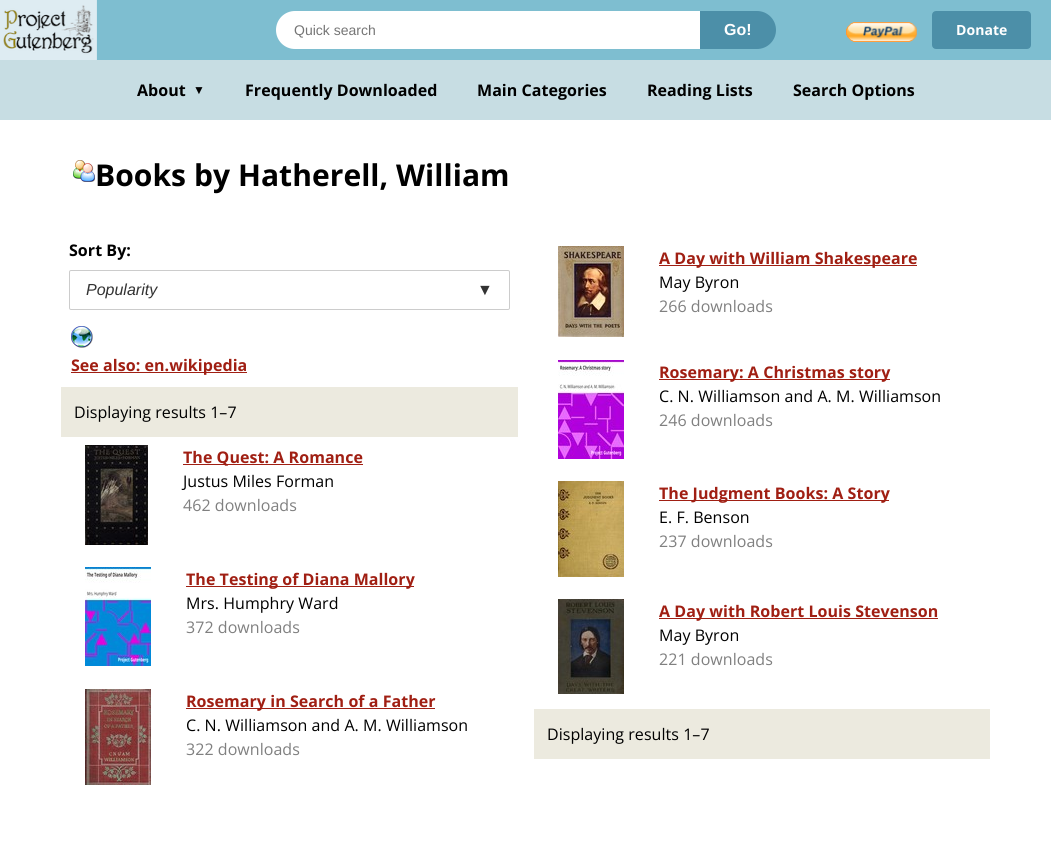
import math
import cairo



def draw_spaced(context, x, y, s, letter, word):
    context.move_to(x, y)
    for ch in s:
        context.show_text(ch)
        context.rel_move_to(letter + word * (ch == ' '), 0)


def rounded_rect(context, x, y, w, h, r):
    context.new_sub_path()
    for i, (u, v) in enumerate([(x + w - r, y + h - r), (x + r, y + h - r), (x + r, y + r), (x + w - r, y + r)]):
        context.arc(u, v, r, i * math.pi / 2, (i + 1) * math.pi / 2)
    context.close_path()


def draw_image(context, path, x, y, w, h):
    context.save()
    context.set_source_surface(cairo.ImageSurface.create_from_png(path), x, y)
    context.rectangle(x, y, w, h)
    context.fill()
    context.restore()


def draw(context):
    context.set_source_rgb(1, 1, 1)
    context.paint()
    context.set_source_rgb(126 / 255, 190 / 255, 208 / 255)
    context.rectangle(96, 0, 955, 60)
    context.fill()
    draw_image(context, "images/1.png", 0, 0, 97, 60)
    context.set_source_rgb(1, 1, 1)
    context.new_path()
    context.move_to(295, 12)
    context.line_to(699, 12)
    context.line_to(699, 48)
    context.line_to(295, 48)
    context.curve_to(285, 48, 277, 40, 277, 30)
    context.curve_to(277, 20, 285, 12, 295, 12)
    context.close_path()
    context.fill_preserve()
    context.stroke()
    context.set_source_rgb(76 / 255, 143 / 255, 168 / 255)
    context.new_path()
    context.move_to(700, 11)
    context.line_to(757, 11)
    context.curve_to(767.5, 11, 776, 19.5, 776, 30)
    context.curve_to(776, 40.5, 767.5, 49, 757, 49)
    context.line_to(700, 49)
    context.close_path()
    context.fill()
    draw_image(context, "images/2.png", 846, 22, 71, 20)
    rounded_rect(context, 933, 12, 97, 36, 3)
    context.fill_preserve()
    context.stroke()
    context.set_source_rgb(199 / 255, 221 / 255, 227 / 255)
    context.rectangle(0, 60, 1051, 60)
    context.fill()
    draw_image(context, "images/3.png", 73, 160, 22, 22)
    draw_image(context, "images/4.png", 558, 246, 66, 91)
    context.set_source_rgb(160 / 255, 31 / 255, 19 / 255)
    context.rectangle(659, 265, 258, 1)
    context.fill()
    rounded_rect(context, 69.5, 270.5, 440, 39, 1.5)
    context.set_source_rgb(204 / 255, 204 / 255, 204 / 255)
    context.set_line_width(1)
    context.stroke()
    draw_image(context, "images/5.png", 71, 326, 22, 22)
    context.set_source_rgb(160 / 255, 31 / 255, 19 / 255)
    context.rectangle(71, 372, 176, 1)
    context.fill()
    draw_image(context, "images/6.png", 558, 360, 66, 99)
    context.rectangle(659, 379, 231, 1)
    context.fill()
    context.set_source_rgb(236 / 255, 234 / 255, 223 / 255)
    context.rectangle(61, 387, 457, 50)
    context.fill()
    draw_image(context, "images/7.png", 85, 445, 63, 100)
    context.set_source_rgb(160 / 255, 31 / 255, 19 / 255)
    context.rectangle(183, 464, 180, 1)
    context.fill()
    draw_image(context, "images/8.png", 558, 481, 66, 96)
    context.rectangle(659, 500, 230, 1)
    context.fill()
    draw_image(context, "images/9.png", 85, 567, 66, 99)
    context.rectangle(186, 586, 228, 1)
    context.fill()
    draw_image(context, "images/10.png", 558, 599, 66, 95)
    context.rectangle(659, 618, 279, 1)
    context.fill()
    draw_image(context, "images/11.png", 85, 689, 66, 96)
    context.rectangle(186, 708, 249, 1)
    context.fill()
    context.set_source_rgb(236 / 255, 234 / 255, 223 / 255)
    context.rectangle(534, 709, 456, 50)
    context.fill()
    context.select_font_face("Liberation Sans")
    context.set_font_size(14)
    context.set_source_rgb(117 / 255, 117 / 255, 117 / 255)
    context.move_to(294, 35)
    context.show_text("Quick search")
    context.select_font_face("Liberation Sans", cairo.FontSlant.NORMAL, cairo.FontWeight.BOLD)
    context.set_font_size(16)
    context.set_source_rgb(1, 1, 1)
    context.move_to(724, 35)
    context.show_text("Go!")
    context.select_font_face("Open Sans", cairo.FontSlant.NORMAL, cairo.FontWeight.BOLD)
    context.set_font_size(14)
    draw_spaced(context, 956, 35, "Donate", 0.05, 0)
    context.set_font_size(16)
    context.set_source_rgb(0, 0, 0)
    draw_spaced(context, 137, 96, "About", 0.05, 0)
    context.select_font_face("Liberation Sans", cairo.FontSlant.NORMAL, cairo.FontWeight.BOLD)
    context.set_font_size(12)
    draw_spaced(context, 193, 94, "▼", 0.05, 0)
    context.select_font_face("Open Sans", cairo.FontSlant.NORMAL, cairo.FontWeight.BOLD)
    context.set_font_size(16)
    draw_spaced(context, 245, 96, "Frequently Downloaded", 0.05, 0)
    draw_spaced(context, 477, 96, "Main Categories", 0.05, 0)
    draw_spaced(context, 647, 96, "Reading Lists", 0.05, 0)
    draw_spaced(context, 793, 96, "Search Options", 0.05, 0)
    context.set_font_size(30)
    draw_spaced(context, 95, 186, "Books by Hatherell, William", 0.05, 0)
    context.set_font_size(16)
    draw_spaced(context, 69, 256, "Sort By:", 0.05, 0)
    context.set_source_rgb(160 / 255, 31 / 255, 19 / 255)
    draw_spaced(context, 659, 264, "A Day with William Shakespeare", 0.05, 0)
    context.select_font_face("Open Sans")
    context.set_source_rgb(0, 0, 0)
    draw_spaced(context, 659, 288, "May Byron", 0.05, 0)
    context.set_source_rgb(128 / 255, 128 / 255, 128 / 255)
    draw_spaced(context, 659, 312, "266 downloads", 0.05, 0)
    context.select_font_face("Liberation Sans", cairo.FontSlant.ITALIC)
    context.set_source_rgb(51 / 255, 51 / 255, 51 / 255)
    context.move_to(86, 295)
    context.show_text("Popularity")
    context.move_to(477, 295)
    context.show_text("▼")
    context.select_font_face("Open Sans", cairo.FontSlant.NORMAL, cairo.FontWeight.BOLD)
    context.set_source_rgb(160 / 255, 31 / 255, 19 / 255)
    draw_spaced(context, 71, 371, "See also: en.wikipedia", 0.05, 0)
    draw_spaced(context, 659, 378, "Rosemary: A Christmas story", 0.05, 0)
    context.select_font_face("Open Sans")
    context.set_source_rgb(0, 0, 0)
    draw_spaced(context, 659, 402, "C. N. Williamson and A. M. Williamson", 0.05, 0)
    context.set_source_rgb(128 / 255, 128 / 255, 128 / 255)
    draw_spaced(context, 659, 426, "246 downloads", 0.05, 0)
    context.set_source_rgb(0, 0, 0)
    draw_spaced(context, 74, 418, "Displaying results 1–7", 0.05, 0)
    context.select_font_face("Open Sans", cairo.FontSlant.NORMAL, cairo.FontWeight.BOLD)
    context.set_source_rgb(160 / 255, 31 / 255, 19 / 255)
    draw_spaced(context, 183, 463, "The Quest: A Romance", 0.05, 0)
    context.select_font_face("Open Sans")
    context.set_source_rgb(0, 0, 0)
    draw_spaced(context, 183, 487, "Justus Miles Forman", 0.05, 0)
    context.set_source_rgb(128 / 255, 128 / 255, 128 / 255)
    draw_spaced(context, 183, 511, "462 downloads", 0.05, 0)
    context.select_font_face("Open Sans", cairo.FontSlant.NORMAL, cairo.FontWeight.BOLD)
    context.set_source_rgb(160 / 255, 31 / 255, 19 / 255)
    draw_spaced(context, 659, 499, "The Judgment Books: A Story", 0.05, 0)
    context.select_font_face("Open Sans")
    context.set_source_rgb(0, 0, 0)
    draw_spaced(context, 659, 523, "E. F. Benson", 0.05, 0)
    context.set_source_rgb(128 / 255, 128 / 255, 128 / 255)
    draw_spaced(context, 659, 547, "237 downloads", 0.05, 0)
    context.select_font_face("Open Sans", cairo.FontSlant.NORMAL, cairo.FontWeight.BOLD)
    context.set_source_rgb(160 / 255, 31 / 255, 19 / 255)
    draw_spaced(context, 186, 585, "The Testing of Diana Mallory", 0.05, 0)
    context.select_font_face("Open Sans")
    context.set_source_rgb(0, 0, 0)
    draw_spaced(context, 186, 609, "Mrs. Humphry Ward", 0.05, 0)
    context.set_source_rgb(128 / 255, 128 / 255, 128 / 255)
    draw_spaced(context, 186, 633, "372 downloads", 0.05, 0)
    context.select_font_face("Open Sans", cairo.FontSlant.NORMAL, cairo.FontWeight.BOLD)
    context.set_source_rgb(160 / 255, 31 / 255, 19 / 255)
    draw_spaced(context, 659, 617, "A Day with Robert Louis Stevenson", 0.05, 0)
    context.select_font_face("Open Sans")
    context.set_source_rgb(0, 0, 0)
    draw_spaced(context, 659, 641, "May Byron", 0.05, 0)
    context.set_source_rgb(128 / 255, 128 / 255, 128 / 255)
    draw_spaced(context, 659, 665, "221 downloads", 0.05, 0)
    context.select_font_face("Open Sans", cairo.FontSlant.NORMAL, cairo.FontWeight.BOLD)
    context.set_source_rgb(160 / 255, 31 / 255, 19 / 255)
    draw_spaced(context, 186, 707, "Rosemary in Search of a Father", 0.05, 0)
    context.select_font_face("Open Sans")
    context.set_source_rgb(0, 0, 0)
    draw_spaced(context, 186, 731, "C. N. Williamson and A. M. Williamson", 0.05, 0)
    context.set_source_rgb(128 / 255, 128 / 255, 128 / 255)
    draw_spaced(context, 186, 755, "322 downloads", 0.05, 0)
    context.set_source_rgb(0, 0, 0)
    draw_spaced(context, 547, 740, "Displaying results 1–7", 0.05, 0)


surface = cairo.ImageSurface(cairo.Format.RGB24, 1051, 858)
context = cairo.Context(surface)
options = cairo.FontOptions()
options.set_hint_metrics(cairo.HintMetrics.OFF)
options.set_hint_style(cairo.HintStyle.NONE)
context.set_font_options(options)
context.set_miter_limit(4)
draw(context)
surface.write_to_png("out.png")
